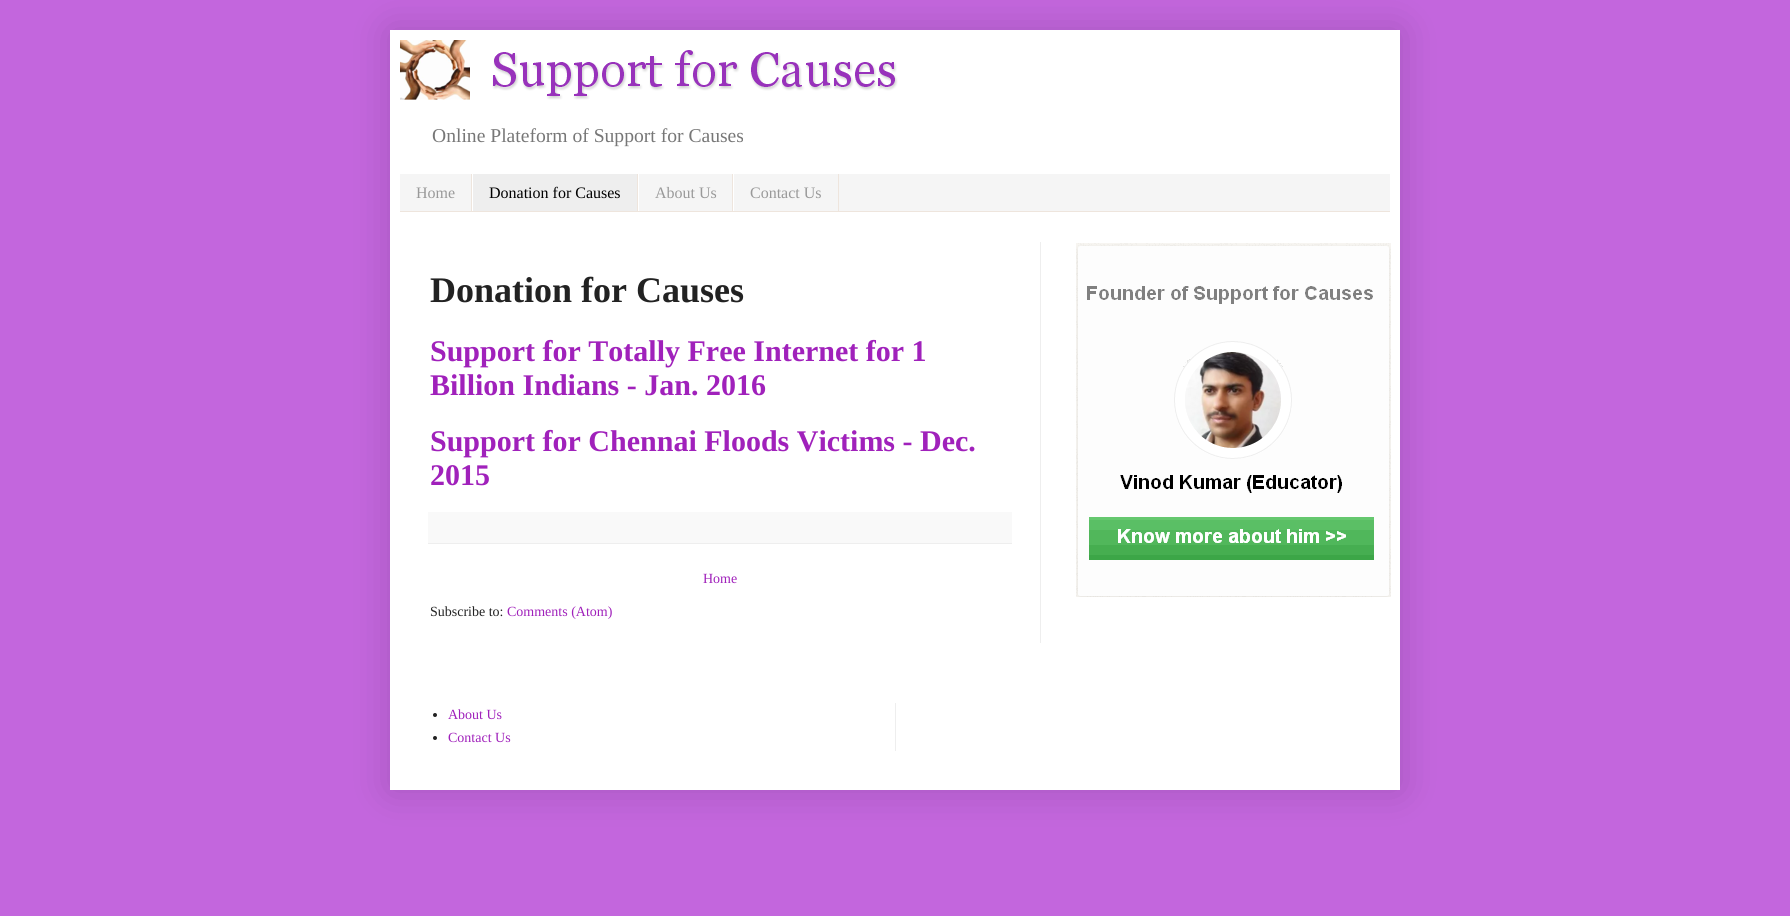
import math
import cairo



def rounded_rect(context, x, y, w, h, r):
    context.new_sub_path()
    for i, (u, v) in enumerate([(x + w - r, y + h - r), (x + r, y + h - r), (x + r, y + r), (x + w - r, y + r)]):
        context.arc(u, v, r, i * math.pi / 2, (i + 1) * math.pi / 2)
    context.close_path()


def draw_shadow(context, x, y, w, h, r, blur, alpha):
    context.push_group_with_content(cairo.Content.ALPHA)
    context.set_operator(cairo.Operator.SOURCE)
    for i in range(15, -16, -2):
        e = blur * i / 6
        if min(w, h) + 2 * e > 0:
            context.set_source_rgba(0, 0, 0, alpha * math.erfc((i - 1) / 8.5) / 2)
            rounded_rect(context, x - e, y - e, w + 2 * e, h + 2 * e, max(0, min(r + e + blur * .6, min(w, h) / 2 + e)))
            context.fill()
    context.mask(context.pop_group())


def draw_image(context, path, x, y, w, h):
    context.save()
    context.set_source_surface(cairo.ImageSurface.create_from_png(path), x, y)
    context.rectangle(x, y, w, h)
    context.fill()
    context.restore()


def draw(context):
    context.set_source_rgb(195 / 255, 102 / 255, 221 / 255)
    context.paint()
    context.set_source_rgb(0, 0, 0)
    draw_shadow(context, 390, 30, 1010, 760, 0, 20, 0.15)
    context.set_source_rgb(1, 1, 1)
    context.rectangle(390, 30, 1010, 760)
    context.fill()
    draw_image(context, "images/1.png", 400, 40, 498, 60)
    context.set_source_rgb(245 / 255, 245 / 255, 245 / 255)
    context.rectangle(400, 174, 990, 37)
    context.fill()
    context.set_source_rgb(238 / 255, 229 / 255, 221 / 255)
    context.rectangle(400, 211, 990, 1)
    context.fill()
    context.rectangle(471, 174, 1, 37)
    context.fill()
    context.set_source_rgb(238 / 255, 238 / 255, 238 / 255)
    context.rectangle(473, 174, 164, 37)
    context.fill()
    context.set_source_rgb(238 / 255, 229 / 255, 221 / 255)
    context.rectangle(637, 174, 1, 37)
    context.fill()
    context.set_source_rgb(1, 1, 1)
    context.rectangle(472, 174, 1, 37)
    context.fill()
    context.set_source_rgb(238 / 255, 229 / 255, 221 / 255)
    context.rectangle(732, 174, 1, 37)
    context.fill()
    context.set_source_rgb(1, 1, 1)
    context.rectangle(638, 174, 1, 37)
    context.fill()
    context.set_source_rgb(238 / 255, 229 / 255, 221 / 255)
    context.rectangle(838, 174, 1, 37)
    context.fill()
    context.set_source_rgb(1, 1, 1)
    context.rectangle(733, 174, 1, 37)
    context.fill()
    context.set_source_rgb(249 / 255, 249 / 255, 249 / 255)
    context.rectangle(428, 512, 584, 31)
    context.fill()
    context.set_source_rgb(238 / 255, 238 / 255, 238 / 255)
    context.rectangle(428, 543, 584, 1)
    context.fill()
    draw_image(context, "images/2.png", 1076, 243, 315, 354)
    context.rectangle(1040, 242, 1, 401)
    context.fill()
    context.set_source_rgb(34 / 255, 34 / 255, 34 / 255)
    context.arc(435, 715, 2, 0, 2 * math.pi)
    context.fill()
    context.arc(435, 738, 2, 0, 2 * math.pi)
    context.fill()
    context.set_source_rgb(238 / 255, 238 / 255, 238 / 255)
    context.rectangle(895, 703, 1, 48)
    context.fill()
    context.select_font_face("Liberation Serif")
    context.set_font_size(19.6)
    context.set_source_rgb(119 / 255, 119 / 255, 119 / 255)
    context.move_to(432, 142)
    context.show_text("Online Plateform of Support for Causes")
    context.set_font_size(16)
    context.set_source_rgb(153 / 255, 153 / 255, 153 / 255)
    context.move_to(416, 198)
    context.show_text("Home")
    context.set_source_rgb(0, 0, 0)
    context.move_to(489, 198)
    context.show_text("Donation for Causes")
    context.set_source_rgb(153 / 255, 153 / 255, 153 / 255)
    context.move_to(655, 198)
    context.show_text("About Us")
    context.move_to(750, 198)
    context.show_text("Contact Us")
    context.select_font_face("Liberation Serif", cairo.FontSlant.NORMAL, cairo.FontWeight.BOLD)
    context.set_font_size(36)
    context.set_source_rgb(34 / 255, 34 / 255, 34 / 255)
    context.move_to(430, 302)
    context.show_text("Donation for Causes")
    context.set_font_size(30)
    context.set_source_rgb(160 / 255, 33 / 255, 187 / 255)
    context.move_to(430, 361)
    context.show_text("Support for Totally Free Internet for 1")
    context.move_to(430, 395)
    context.show_text("Billion Indians - Jan. 2016")
    context.move_to(430, 451)
    context.show_text("Support for Chennai Floods Victims - Dec.")
    context.move_to(430, 485)
    context.show_text("2015")
    context.select_font_face("Liberation Serif")
    context.set_font_size(14)
    context.move_to(703, 583)
    context.show_text("Home")
    context.set_source_rgb(34 / 255, 34 / 255, 34 / 255)
    context.move_to(430, 616)
    context.show_text("Subscribe to:")
    context.set_source_rgb(160 / 255, 33 / 255, 187 / 255)
    context.move_to(507, 616)
    context.show_text("Comments (Atom)")
    context.move_to(448, 719)
    context.show_text("About Us")
    context.move_to(448, 742)
    context.show_text("Contact Us")


surface = cairo.ImageSurface(cairo.Format.RGB24, 1790, 916)
context = cairo.Context(surface)
options = cairo.FontOptions()
options.set_hint_metrics(cairo.HintMetrics.OFF)
options.set_hint_style(cairo.HintStyle.NONE)
context.set_font_options(options)
context.set_miter_limit(4)
draw(context)
surface.write_to_png("out.png")
